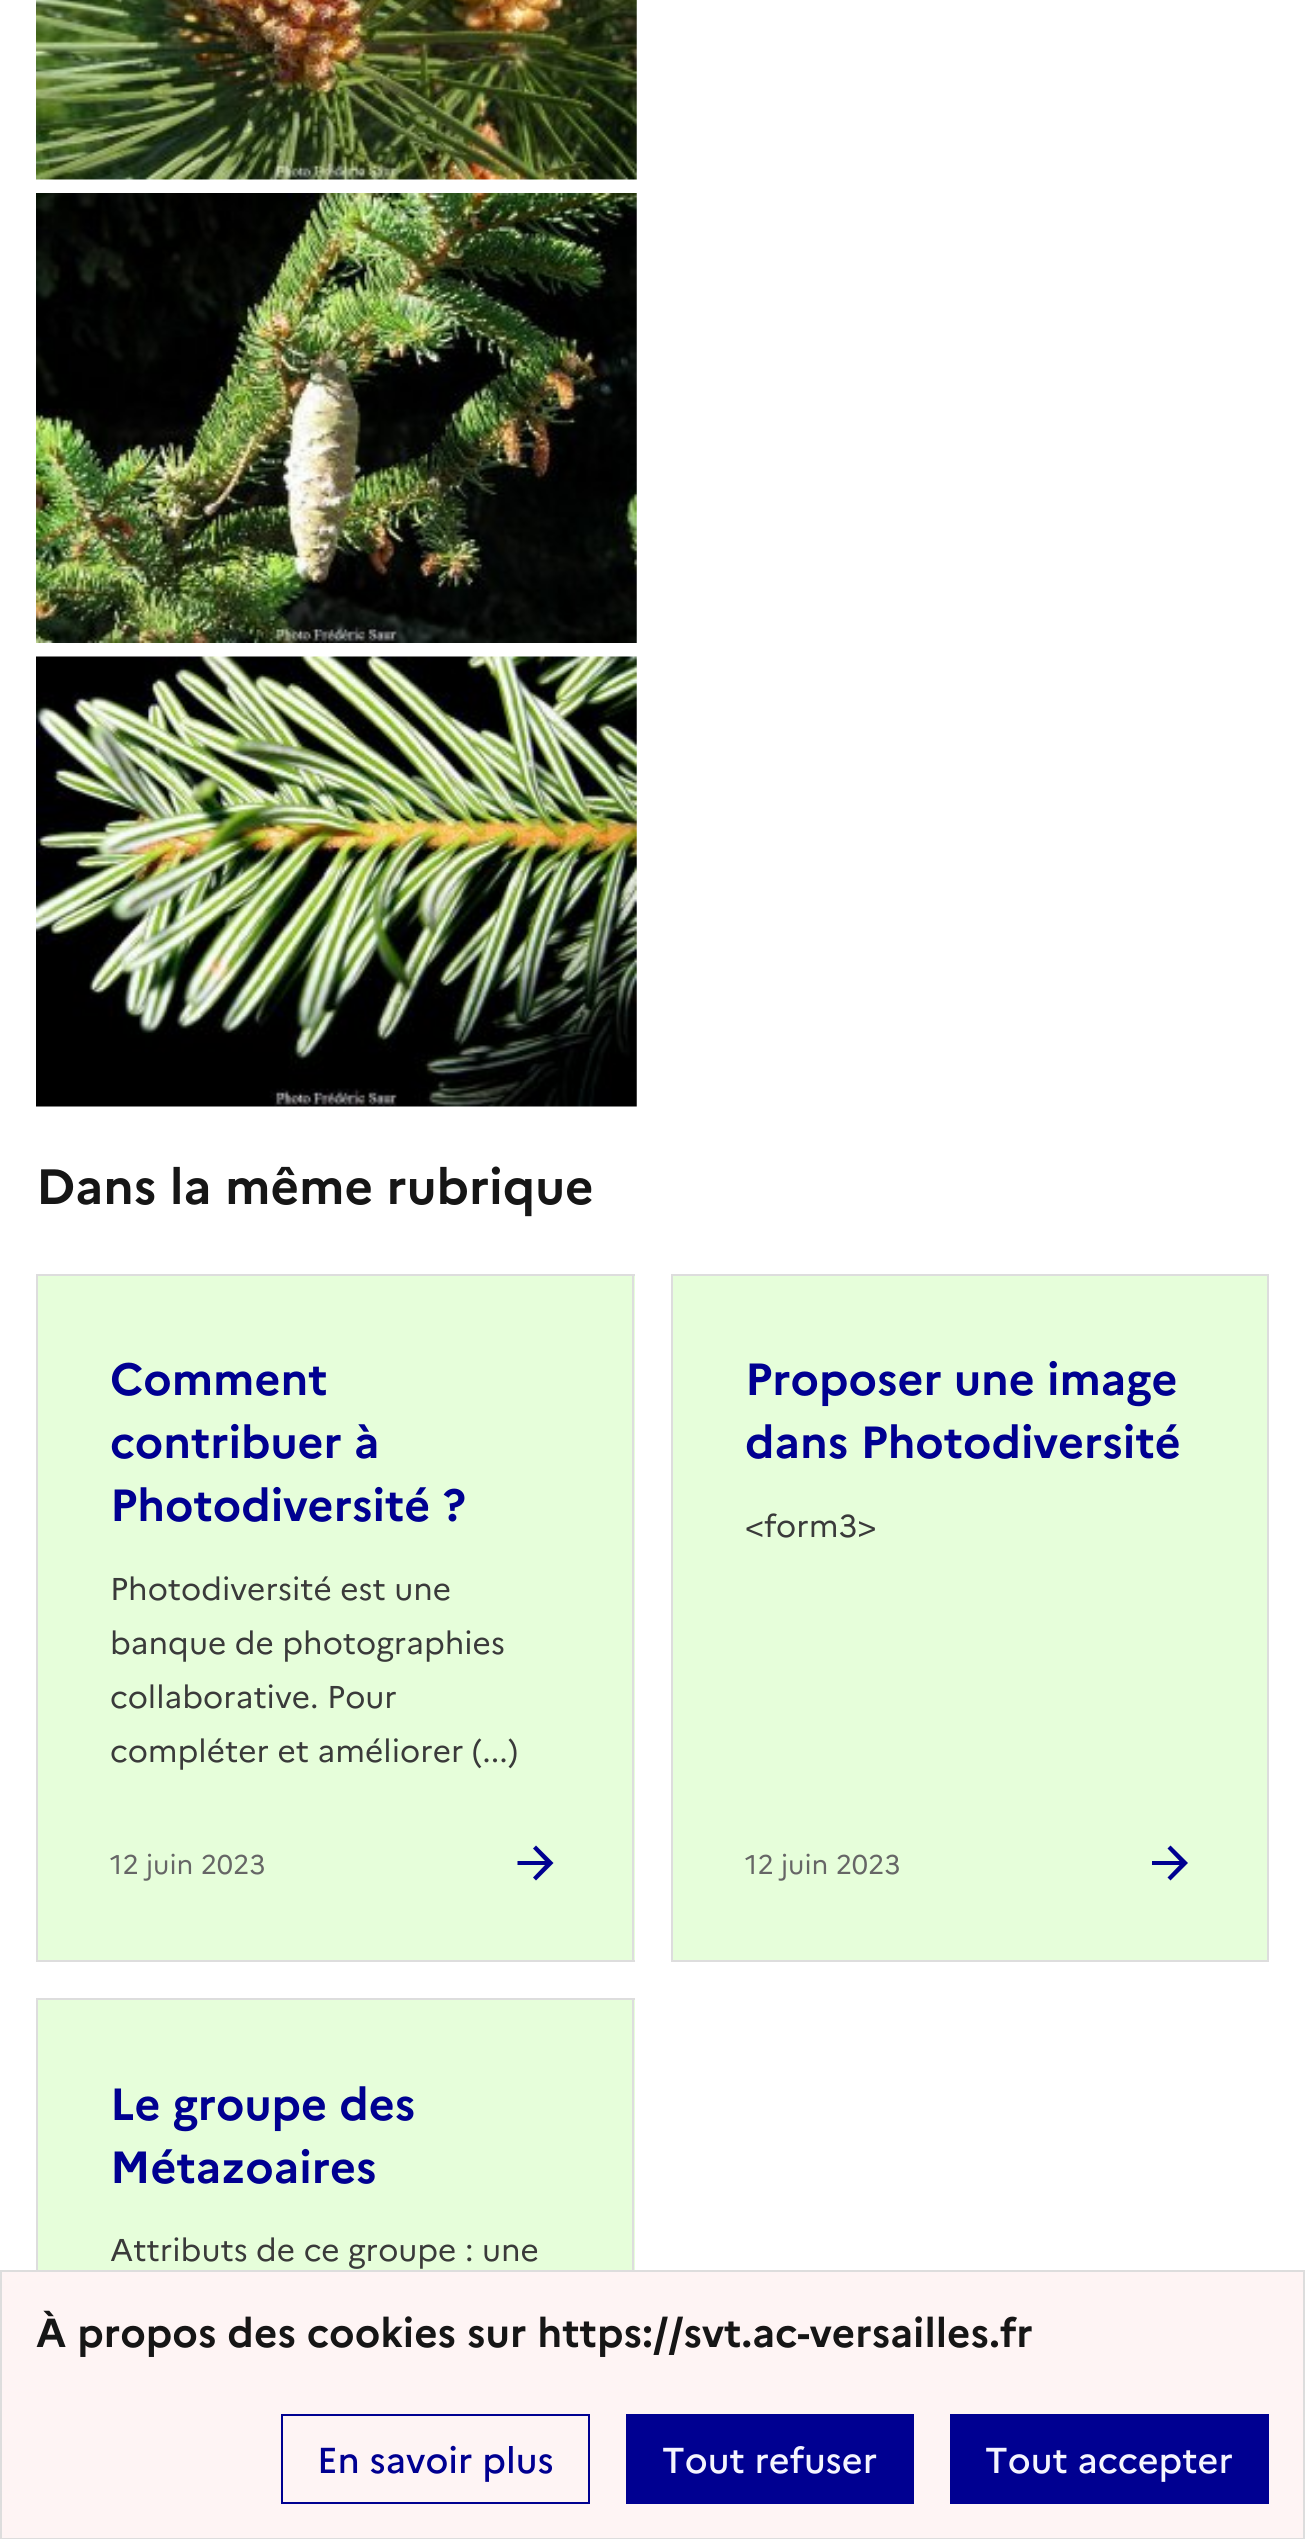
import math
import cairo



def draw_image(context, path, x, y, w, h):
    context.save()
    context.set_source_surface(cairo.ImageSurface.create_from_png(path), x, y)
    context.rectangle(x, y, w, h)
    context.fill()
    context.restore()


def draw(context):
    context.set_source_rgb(1, 1, 1)
    context.paint()
    draw_image(context, "images/1.png", 36, 0, 601, 180)
    draw_image(context, "images/2.png", 36, 193, 601, 450)
    draw_image(context, "images/3.png", 36, 656, 601, 451)
    context.set_source_rgb(230 / 255, 254 / 255, 218 / 255)
    context.rectangle(38, 1276, 597, 684)
    context.fill()
    context.set_source_rgb(221 / 255, 221 / 255, 221 / 255)
    context.rectangle(36, 1274, 599, 2)
    context.fill()
    context.rectangle(632, 1274, 2, 688)
    context.fill()
    context.rectangle(36, 1274, 2, 688)
    context.fill()
    context.rectangle(36, 1960, 599, 2)
    context.fill()
    context.set_source_rgb(0, 0, 145 / 255)
    context.new_path()
    context.move_to(545, 1861)
    context.line_to(533, 1848.5)
    context.line_to(536, 1845.5)
    context.line_to(553.5, 1863)
    context.line_to(536, 1880.5)
    context.line_to(533, 1877.5)
    context.line_to(545, 1865)
    context.line_to(517.5, 1865)
    context.line_to(517.5, 1861)
    context.close_path()
    context.fill()
    context.set_source_rgb(230 / 255, 254 / 255, 218 / 255)
    context.rectangle(673, 1276, 594, 684)
    context.fill()
    context.set_source_rgb(221 / 255, 221 / 255, 221 / 255)
    context.rectangle(671, 1274, 598, 2)
    context.fill()
    context.rectangle(1267, 1274, 2, 688)
    context.fill()
    context.rectangle(671, 1274, 2, 688)
    context.fill()
    context.rectangle(671, 1960, 598, 2)
    context.fill()
    context.set_source_rgb(0, 0, 145 / 255)
    context.new_path()
    context.move_to(1179.5, 1861)
    context.line_to(1167.5, 1848.5)
    context.line_to(1170.5, 1845.5)
    context.line_to(1188, 1863)
    context.line_to(1170.5, 1880.5)
    context.line_to(1167.5, 1877.5)
    context.line_to(1179.5, 1865)
    context.line_to(1152, 1865)
    context.line_to(1152, 1861)
    context.close_path()
    context.fill()
    context.set_source_rgb(230 / 255, 254 / 255, 218 / 255)
    context.rectangle(38, 2000, 597, 270)
    context.fill()
    context.set_source_rgb(221 / 255, 221 / 255, 221 / 255)
    context.rectangle(36, 1998, 599, 2)
    context.fill()
    context.rectangle(632, 1998, 2, 272)
    context.fill()
    context.rectangle(36, 1998, 2, 272)
    context.fill()
    context.set_source_rgb(254 / 255, 244 / 255, 244 / 255)
    context.rectangle(1, 2271, 1303, 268)
    context.fill_preserve()
    context.set_source_rgb(221 / 255, 221 / 255, 221 / 255)
    context.stroke()
    context.rectangle(282, 2415, 307, 88)
    context.set_source_rgb(0, 0, 145 / 255)
    context.stroke()
    context.rectangle(626, 2414, 288, 90)
    context.fill()
    context.rectangle(950, 2414, 319, 90)
    context.fill()
    context.select_font_face("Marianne", cairo.FontSlant.NORMAL, cairo.FontWeight.BOLD)
    context.set_font_size(49.5)
    context.set_source_rgb(22 / 255, 22 / 255, 22 / 255)
    context.move_to(36, 1204)
    context.show_text("Dans la même rubrique")
    context.set_font_size(45)
    context.set_source_rgb(0, 0, 145 / 255)
    context.move_to(110, 1395)
    context.show_text("Comment")
    context.move_to(110, 1458)
    context.show_text("contribuer à")
    context.move_to(110, 1521)
    context.show_text("Photodiversité ?")
    context.select_font_face("Marianne")
    context.set_font_size(31.5)
    context.set_source_rgb(58 / 255, 58 / 255, 58 / 255)
    context.move_to(110, 1600)
    context.show_text("Photodiversité est une")
    context.move_to(110, 1654)
    context.show_text("banque de photographies")
    context.move_to(110, 1708)
    context.show_text("collaborative. Pour")
    context.move_to(110, 1762)
    context.show_text("compléter et améliorer (...)")
    context.set_font_size(27)
    context.set_source_rgb(102 / 255, 102 / 255, 102 / 255)
    context.move_to(110, 1874)
    context.show_text("12 juin 2023")
    context.select_font_face("Marianne", cairo.FontSlant.NORMAL, cairo.FontWeight.BOLD)
    context.set_font_size(45)
    context.set_source_rgb(0, 0, 145 / 255)
    context.move_to(745, 1395)
    context.show_text("Proposer une image")
    context.move_to(745, 1458)
    context.show_text("dans Photodiversité")
    context.select_font_face("Marianne")
    context.set_font_size(31.5)
    context.set_source_rgb(58 / 255, 58 / 255, 58 / 255)
    context.move_to(745, 1537)
    context.show_text("<form3>")
    context.set_font_size(27)
    context.set_source_rgb(102 / 255, 102 / 255, 102 / 255)
    context.move_to(745, 1874)
    context.show_text("12 juin 2023")
    context.select_font_face("Marianne", cairo.FontSlant.NORMAL, cairo.FontWeight.BOLD)
    context.set_font_size(45)
    context.set_source_rgb(0, 0, 145 / 255)
    context.move_to(110, 2120)
    context.show_text("Le groupe des")
    context.move_to(110, 2183)
    context.show_text("Métazoaires")
    context.select_font_face("Marianne")
    context.set_font_size(31.5)
    context.set_source_rgb(58 / 255, 58 / 255, 58 / 255)
    context.move_to(110, 2261)
    context.show_text("Attributs de ce groupe : une")
    context.select_font_face("Marianne", cairo.FontSlant.NORMAL, cairo.FontWeight.BOLD)
    context.set_font_size(40.5)
    context.set_source_rgb(22 / 255, 22 / 255, 22 / 255)
    context.move_to(36, 2347)
    context.show_text("À propos des cookies sur https://svt.ac-versailles.fr")
    context.select_font_face("Marianne Medium")
    context.set_font_size(36)
    context.set_source_rgb(0, 0, 145 / 255)
    context.move_to(317, 2473)
    context.show_text("En savoir plus")
    context.set_source_rgb(245 / 255, 245 / 255, 254 / 255)
    context.move_to(662, 2473)
    context.show_text("Tout refuser")
    context.move_to(985, 2473)
    context.show_text("Tout accepter")


surface = cairo.ImageSurface(cairo.Format.RGB24, 1305, 2539)
context = cairo.Context(surface)
options = cairo.FontOptions()
options.set_hint_metrics(cairo.HintMetrics.OFF)
options.set_hint_style(cairo.HintStyle.NONE)
context.set_font_options(options)
context.set_miter_limit(4)
draw(context)
surface.write_to_png("out.png")
